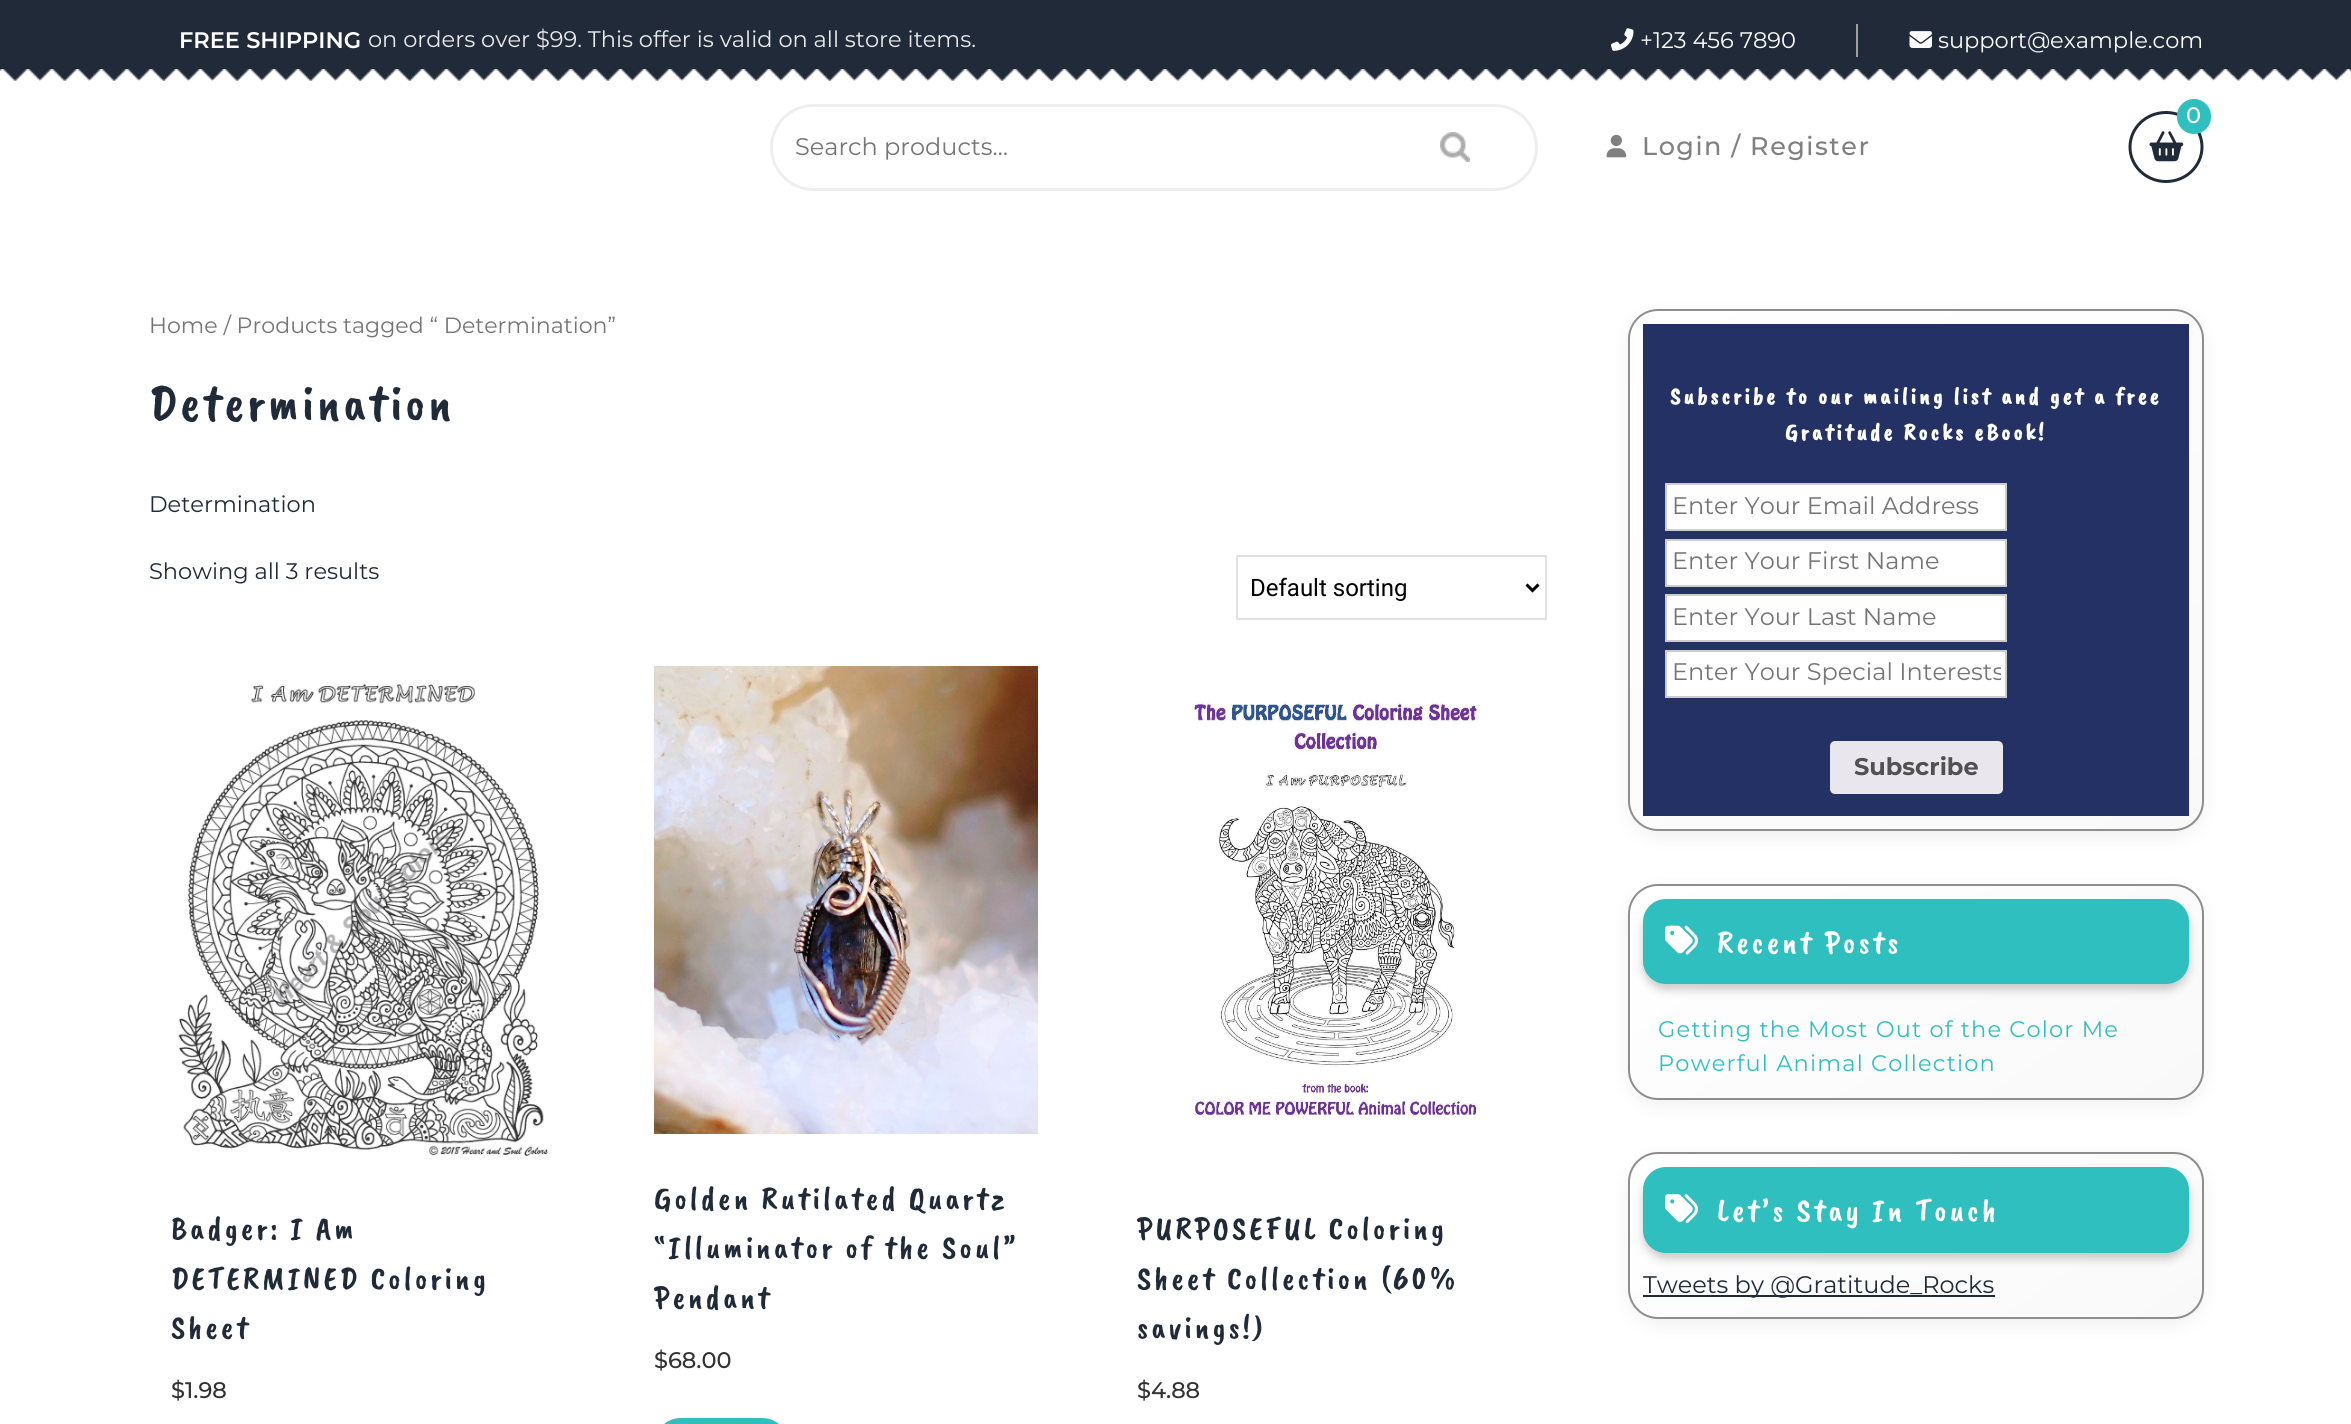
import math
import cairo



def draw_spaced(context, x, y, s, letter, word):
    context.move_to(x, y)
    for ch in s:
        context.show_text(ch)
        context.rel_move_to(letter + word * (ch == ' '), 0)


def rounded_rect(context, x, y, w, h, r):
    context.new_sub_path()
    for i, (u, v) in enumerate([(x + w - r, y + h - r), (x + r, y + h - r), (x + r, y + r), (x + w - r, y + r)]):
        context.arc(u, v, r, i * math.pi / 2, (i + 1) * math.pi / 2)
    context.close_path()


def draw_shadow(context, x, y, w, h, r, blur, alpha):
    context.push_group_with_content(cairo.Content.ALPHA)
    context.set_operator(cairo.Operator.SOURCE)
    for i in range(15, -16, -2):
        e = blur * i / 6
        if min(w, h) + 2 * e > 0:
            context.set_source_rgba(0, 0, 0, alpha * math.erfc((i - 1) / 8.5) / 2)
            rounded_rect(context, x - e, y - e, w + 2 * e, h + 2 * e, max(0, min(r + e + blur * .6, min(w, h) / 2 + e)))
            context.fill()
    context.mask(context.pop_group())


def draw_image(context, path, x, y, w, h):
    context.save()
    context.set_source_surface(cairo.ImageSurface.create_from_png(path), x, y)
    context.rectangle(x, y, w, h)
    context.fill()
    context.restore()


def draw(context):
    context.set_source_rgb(1, 1, 1)
    context.paint()
    context.set_source_rgb(33 / 255, 42 / 255, 57 / 255)
    context.rectangle(0, 0, 2351, 81)
    context.fill()
    draw_image(context, "images/1.png", 1611, 28, 23, 23)
    context.set_source_rgb(163 / 255, 158 / 255, 158 / 255)
    context.rectangle(1856, 24, 2, 33)
    context.fill()
    draw_image(context, "images/2.png", 1909, 31, 23, 17)
    draw_image(context, "images/3.png", 0, 69, 2351, 12)
    context.new_path()
    context.move_to(2166, 112.5)
    context.curve_to(2186, 112.5, 2202, 128, 2202, 147)
    context.curve_to(2202, 166, 2186, 181.5, 2166, 181.5)
    context.curve_to(2146, 181.5, 2130, 166, 2130, 147)
    context.curve_to(2130, 128, 2146, 112.5, 2166, 112.5)
    context.close_path()
    context.set_source_rgb(33 / 255, 42 / 255, 57 / 255)
    context.set_line_width(3)
    context.stroke()
    draw_image(context, "images/4.png", 2149, 131, 35, 31)
    context.set_source_rgb(48 / 255, 191 / 255, 191 / 255)
    rounded_rect(context, 2177, 99, 34, 35, 17)
    context.fill()
    rounded_rect(context, 771.5, 105.5, 765, 84, 42)
    context.set_source_rgb(238 / 255, 238 / 255, 238 / 255)
    context.stroke()
    draw_image(context, "images/5.png", 1440, 132, 30, 30)
    draw_image(context, "images/6.png", 1606, 134, 21, 24)
    context.rectangle(1237, 556, 309, 63)
    context.set_source_rgb(225 / 255, 225 / 255, 225 / 255)
    context.set_line_width(2)
    context.stroke()
    context.new_path()
    context.move_to(1526.5, 584.5)
    context.line_to(1532.5, 590.5)
    context.line_to(1538.5, 584.5)
    context.set_source_rgb(0, 0, 0)
    context.set_line_width(3)
    context.stroke()
    draw_image(context, "images/7.png", 178, 684, 371, 473)
    draw_image(context, "images/8.png", 654, 666, 384, 468)
    context.set_source_rgb(48 / 255, 191 / 255, 191 / 255)
    rounded_rect(context, 654, 1418, 135, 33, 27)
    context.fill()
    draw_image(context, "images/9.png", 1191, 700, 288, 416)
    context.set_source_rgb(0, 0, 0)
    draw_shadow(context, 1628, 315, 576, 522, 30, 9, 0.06)
    context.save()
    rounded_rect(context, 1628, 309, 576, 522, 30)
    context.clip()
    gradient = cairo.LinearGradient(1699, 261, 2132, 879)
    gradient.add_color_stop_rgba(0, 1, 1, 1, 1)
    gradient.add_color_stop_rgba(1, 249 / 255, 249 / 255, 249 / 255, 1)
    context.set_source(gradient)
    context.rectangle(1629, 311, 573, 519)
    context.fill()
    context.restore()
    rounded_rect(context, 1629, 310, 574, 520, 29)
    context.set_source_rgb(142 / 255, 142 / 255, 142 / 255)
    context.set_line_width(2)
    context.stroke()
    context.set_source_rgb(35 / 255, 49 / 255, 100 / 255)
    context.rectangle(1643, 324, 546, 492)
    context.fill()
    context.set_source_rgb(1, 1, 1)
    context.rectangle(1666, 484, 340, 46)
    context.fill_preserve()
    context.set_source_rgb(204 / 255, 204 / 255, 204 / 255)
    context.stroke()
    context.set_source_rgb(1, 1, 1)
    context.rectangle(1666, 540, 340, 46)
    context.fill_preserve()
    context.set_source_rgb(204 / 255, 204 / 255, 204 / 255)
    context.stroke()
    context.set_source_rgb(1, 1, 1)
    context.rectangle(1666, 595, 340, 46)
    context.fill_preserve()
    context.set_source_rgb(204 / 255, 204 / 255, 204 / 255)
    context.stroke()
    context.set_source_rgb(1, 1, 1)
    context.rectangle(1666, 651, 340, 46)
    context.fill_preserve()
    context.set_source_rgb(204 / 255, 204 / 255, 204 / 255)
    context.stroke()
    context.set_source_rgb(233 / 255, 230 / 255, 237 / 255)
    rounded_rect(context, 1830, 741, 173, 53, 5)
    context.fill()
    context.set_source_rgb(0, 0, 0)
    draw_shadow(context, 1628, 890, 576, 216, 30, 9, 0.06)
    context.save()
    rounded_rect(context, 1628, 884, 576, 216, 30)
    context.clip()
    gradient = cairo.LinearGradient(1771, 785, 2060, 1198)
    gradient.add_color_stop_rgba(0, 1, 1, 1, 1)
    gradient.add_color_stop_rgba(1, 249 / 255, 249 / 255, 249 / 255, 1)
    context.set_source(gradient)
    context.rectangle(1629, 885, 573, 213)
    context.fill()
    context.restore()
    rounded_rect(context, 1629, 885, 574, 214, 29)
    context.set_source_rgb(142 / 255, 142 / 255, 142 / 255)
    context.stroke()
    context.set_source_rgb(0, 0, 0)
    draw_shadow(context, 1643, 905, 546, 85, 23, 4.5, 0.2)
    context.set_source_rgb(48 / 255, 191 / 255, 191 / 255)
    rounded_rect(context, 1643, 899, 546, 85, 23)
    context.fill()
    draw_image(context, "images/10.png", 1665, 925, 33, 30)
    context.set_source_rgb(0, 0, 0)
    draw_shadow(context, 1628, 1158, 576, 167, 30, 9, 0.06)
    context.save()
    rounded_rect(context, 1628, 1152, 576, 167, 30)
    context.clip()
    gradient = cairo.LinearGradient(1783, 1046, 2048, 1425)
    gradient.add_color_stop_rgba(0, 1, 1, 1, 1)
    gradient.add_color_stop_rgba(1, 249 / 255, 249 / 255, 249 / 255, 1)
    context.set_source(gradient)
    context.rectangle(1629, 1154, 573, 163)
    context.fill()
    context.restore()
    rounded_rect(context, 1629, 1153, 574, 165, 29)
    context.set_source_rgb(142 / 255, 142 / 255, 142 / 255)
    context.stroke()
    context.set_source_rgb(0, 0, 0)
    draw_shadow(context, 1643, 1173, 546, 86, 23, 4.5, 0.2)
    context.set_source_rgb(48 / 255, 191 / 255, 191 / 255)
    rounded_rect(context, 1643, 1167, 546, 86, 23)
    context.fill()
    draw_image(context, "images/11.png", 1665, 1194, 33, 29)
    context.set_source_rgb(33 / 255, 42 / 255, 57 / 255)
    context.rectangle(1643, 1295, 352, 2)
    context.fill()
    context.select_font_face("Montserrat SemiBold")
    context.set_font_size(22.5)
    context.set_source_rgb(1, 1, 1)
    context.move_to(179, 48)
    context.show_text("FREE SHIPPING")
    context.select_font_face("Montserrat")
    context.set_source_rgb(233 / 255, 234 / 255, 235 / 255)
    context.move_to(368, 47)
    context.show_text("on orders over $99. This offer is valid on all store items.")
    context.set_source_rgb(1, 1, 1)
    context.move_to(1640, 48)
    context.show_text("+123 456 7890")
    context.move_to(1938, 48)
    context.show_text("support@example.com")
    context.select_font_face("Montserrat Medium")
    context.move_to(2186, 123)
    context.show_text("0")
    context.select_font_face("Montserrat")
    context.set_font_size(24)
    context.set_source_rgb(117 / 255, 117 / 255, 117 / 255)
    context.move_to(795, 155)
    context.show_text("Search products…")
    context.select_font_face("Montserrat Medium")
    context.set_font_size(25.5)
    context.set_source_rgb(128 / 255, 128 / 255, 128 / 255)
    draw_spaced(context, 1642, 155, "Login / Register", 1.5, 0)
    context.select_font_face("Montserrat")
    context.set_font_size(22.1)
    context.set_source_rgb(117 / 255, 117 / 255, 117 / 255)
    context.move_to(149, 333)
    context.show_text("Home / Products tagged “ Determination”")
    context.select_font_face("Caveat Brush")
    context.set_font_size(52.5)
    context.set_source_rgb(33 / 255, 42 / 255, 57 / 255)
    draw_spaced(context, 149, 420, "Determination", 3, 0)
    context.select_font_face("Montserrat")
    context.set_font_size(22.5)
    context.move_to(149, 512)
    context.show_text("Determination")
    context.move_to(149, 579)
    context.show_text("Showing all 3 results")
    context.select_font_face("Roboto")
    context.set_font_size(24)
    context.set_source_rgb(0, 0, 0)
    context.move_to(1250, 596)
    context.show_text("Default sorting")
    context.select_font_face("Caveat Brush")
    context.set_font_size(33)
    context.set_source_rgb(33 / 255, 42 / 255, 57 / 255)
    draw_spaced(context, 171, 1239, "Badger: I Am", 3, 0)
    draw_spaced(context, 171, 1289, "DETERMINED Coloring", 3, 0)
    draw_spaced(context, 171, 1338, "Sheet", 3, 0)
    context.select_font_face("Montserrat Medium")
    context.set_font_size(22.5)
    context.set_source_rgb(50 / 255, 50 / 255, 50 / 255)
    context.move_to(171, 1398)
    context.show_text("$1.98")
    context.select_font_face("Caveat Brush")
    context.set_font_size(33)
    context.set_source_rgb(33 / 255, 42 / 255, 57 / 255)
    draw_spaced(context, 654, 1209, "Golden Rutilated Quartz", 3, 0)
    draw_spaced(context, 654, 1258, "“Illuminator of the Soul”", 3, 0)
    draw_spaced(context, 654, 1308, "Pendant", 3, 0)
    context.select_font_face("Montserrat Medium")
    context.set_font_size(22.5)
    context.set_source_rgb(50 / 255, 50 / 255, 50 / 255)
    context.move_to(654, 1368)
    context.show_text("$68.00")
    context.select_font_face("Caveat Brush")
    context.set_font_size(33)
    context.set_source_rgb(33 / 255, 42 / 255, 57 / 255)
    draw_spaced(context, 1137, 1239, "PURPOSEFUL Coloring", 3, 0)
    draw_spaced(context, 1137, 1289, "Sheet Collection (60%", 3, 0)
    draw_spaced(context, 1137, 1338, "savings!)", 3, 0)
    context.select_font_face("Montserrat Medium")
    context.set_font_size(22.5)
    context.set_source_rgb(50 / 255, 50 / 255, 50 / 255)
    context.move_to(1137, 1398)
    context.show_text("$4.88")
    context.select_font_face("Caveat Brush", cairo.FontSlant.NORMAL, cairo.FontWeight.BOLD)
    context.set_font_size(24)
    context.set_source_rgb(1, 1, 1)
    draw_spaced(context, 1670, 404, "Subscribe to our mailing list and get a free", 3, 0)
    draw_spaced(context, 1785, 440, "Gratitude Rocks eBook!", 3, 0)
    context.select_font_face("Montserrat")
    context.set_source_rgb(117 / 255, 117 / 255, 117 / 255)
    context.move_to(1672, 514)
    context.show_text("Enter Your Email Address")
    context.move_to(1672, 569)
    context.show_text("Enter Your First Name")
    context.move_to(1672, 625)
    context.show_text("Enter Your Last Name")
    context.save()
    context.rectangle(1671, 659, 330, 28)
    context.clip()
    context.move_to(1672, 680)
    context.show_text("Enter Your Special Interests")
    context.restore()
    context.select_font_face("Montserrat", cairo.FontSlant.NORMAL, cairo.FontWeight.BOLD)
    context.set_source_rgb(81 / 255, 81 / 255, 81 / 255)
    context.move_to(1854, 775)
    context.show_text("Subscribe")
    context.select_font_face("Caveat Brush")
    context.set_font_size(33)
    context.set_source_rgb(1, 1, 1)
    draw_spaced(context, 1717, 953, "Recent Posts", 3, 0)
    context.select_font_face("Montserrat")
    context.set_font_size(22.5)
    context.set_source_rgb(48 / 255, 191 / 255, 191 / 255)
    draw_spaced(context, 1658, 1037, "Getting the Most Out of the Color Me", 1.2, 0)
    draw_spaced(context, 1658, 1071, "Powerful Animal Collection", 1.2, 0)
    context.select_font_face("Caveat Brush")
    context.set_font_size(33)
    context.set_source_rgb(1, 1, 1)
    draw_spaced(context, 1717, 1221, "Let’s Stay In Touch", 3, 0)
    context.select_font_face("Montserrat")
    context.set_font_size(24)
    context.set_source_rgb(33 / 255, 42 / 255, 57 / 255)
    context.move_to(1643, 1293)
    context.show_text("Tweets by @Gratitude_Rocks")


surface = cairo.ImageSurface(cairo.Format.RGB24, 2351, 1424)
context = cairo.Context(surface)
options = cairo.FontOptions()
options.set_hint_metrics(cairo.HintMetrics.OFF)
options.set_hint_style(cairo.HintStyle.NONE)
context.set_font_options(options)
context.set_miter_limit(4)
draw(context)
surface.write_to_png("out.png")
